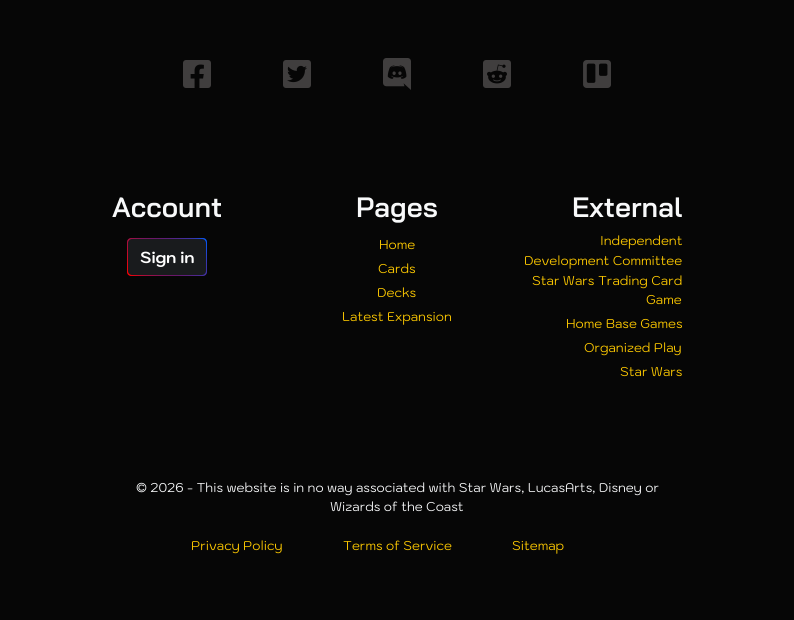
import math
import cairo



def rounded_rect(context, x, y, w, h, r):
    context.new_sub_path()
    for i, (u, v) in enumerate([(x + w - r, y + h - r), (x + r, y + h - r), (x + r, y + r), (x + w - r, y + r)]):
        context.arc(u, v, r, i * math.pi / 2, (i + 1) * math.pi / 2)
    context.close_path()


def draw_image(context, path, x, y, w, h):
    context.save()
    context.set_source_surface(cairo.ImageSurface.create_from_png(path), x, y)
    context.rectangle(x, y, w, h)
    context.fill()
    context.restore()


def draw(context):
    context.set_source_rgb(6 / 255, 6 / 255, 6 / 255)
    context.paint()
    draw_image(context, "images/1.png", 183, 60, 28, 28)
    draw_image(context, "images/2.png", 283, 60, 28, 28)
    draw_image(context, "images/3.png", 383, 58, 28, 32)
    draw_image(context, "images/4.png", 483, 60, 28, 28)
    draw_image(context, "images/5.png", 583, 60, 28, 28)
    gradient = cairo.LinearGradient(128, 277, 206, 237)
    gradient.add_color_stop_rgba(0, 1, 0, 0, 1)
    gradient.add_color_stop_rgba(0.16, 174 / 255, 13 / 255, 56 / 255, 1)
    gradient.add_color_stop_rgba(0.36, 120 / 255, 21 / 255, 94 / 255, 1)
    gradient.add_color_stop_rgba(0.5, 102 / 255, 24 / 255, 107 / 255, 1)
    gradient.add_color_stop_rgba(0.63, 88 / 255, 33 / 255, 128 / 255, 1)
    gradient.add_color_stop_rgba(0.87, 55 / 255, 55 / 255, 175 / 255, 1)
    gradient.add_color_stop_rgba(1, 0, 91 / 255, 1, 1)
    context.set_source(gradient)
    rounded_rect(context, 127, 238, 80, 38, 4)
    context.fill()
    context.set_source_rgb(25 / 255, 27 / 255, 29 / 255)
    rounded_rect(context, 128, 239, 78, 36, 4)
    context.fill()
    context.select_font_face("Bai Jamjuree SemiBold")
    context.set_font_size(28)
    context.set_source_rgb(248 / 255, 249 / 255, 250 / 255)
    context.move_to(112, 217)
    context.show_text("Account")
    context.select_font_face("Kodchasan", cairo.FontSlant.NORMAL, cairo.FontWeight.BOLD)
    context.set_font_size(16)
    context.set_source_rgb(1, 1, 1)
    context.move_to(140, 263)
    context.show_text("Sign in")
    context.select_font_face("Bai Jamjuree SemiBold")
    context.set_font_size(28)
    context.set_source_rgb(248 / 255, 249 / 255, 250 / 255)
    context.move_to(356, 217)
    context.show_text("Pages")
    context.select_font_face("Kodchasan")
    context.set_font_size(12.8)
    context.set_source_rgb(1, 202 / 255, 0)
    context.move_to(379, 249)
    context.show_text("Home")
    context.move_to(378, 273)
    context.show_text("Cards")
    context.move_to(377, 297)
    context.show_text("Decks")
    context.move_to(342, 321)
    context.show_text("Latest Expansion")
    context.select_font_face("Bai Jamjuree SemiBold")
    context.set_font_size(28)
    context.set_source_rgb(248 / 255, 249 / 255, 250 / 255)
    context.move_to(572, 217)
    context.show_text("External")
    context.select_font_face("Kodchasan")
    context.set_font_size(12.8)
    context.set_source_rgb(1, 202 / 255, 0)
    context.move_to(600, 245)
    context.show_text("Independent")
    context.move_to(524, 265)
    context.show_text("Development Committee")
    context.move_to(532, 285)
    context.show_text("Star Wars Trading Card")
    context.move_to(646, 304)
    context.show_text("Game")
    context.move_to(566, 328)
    context.show_text("Home Base Games")
    context.move_to(584, 352)
    context.show_text("Organized Play")
    context.move_to(620, 376)
    context.show_text("Star Wars")
    context.set_source_rgb(248 / 255, 249 / 255, 250 / 255)
    context.move_to(136, 492)
    context.show_text("© 2026 - This website is in no way associated with Star Wars, LucasArts, Disney or")
    context.move_to(330, 511)
    context.show_text("Wizards of the Coast")
    context.set_source_rgb(1, 202 / 255, 0)
    context.move_to(191, 550)
    context.show_text("Privacy Policy")
    context.move_to(343, 550)
    context.show_text("Terms of Service")
    context.move_to(512, 550)
    context.show_text("Sitemap")


surface = cairo.ImageSurface(cairo.Format.RGB24, 794, 620)
context = cairo.Context(surface)
options = cairo.FontOptions()
options.set_hint_metrics(cairo.HintMetrics.OFF)
options.set_hint_style(cairo.HintStyle.NONE)
context.set_font_options(options)
context.set_miter_limit(4)
draw(context)
surface.write_to_png("out.png")
